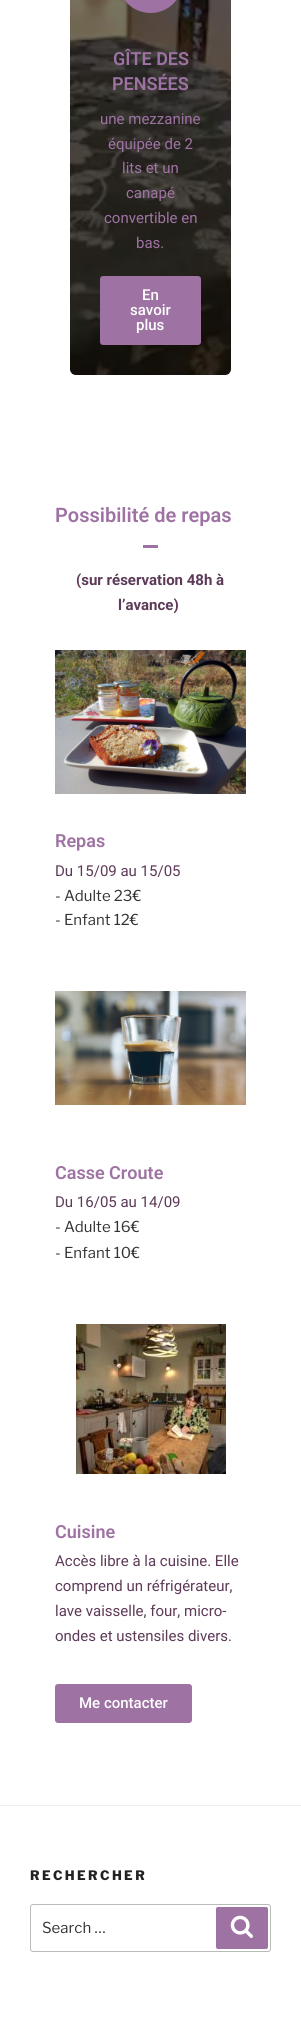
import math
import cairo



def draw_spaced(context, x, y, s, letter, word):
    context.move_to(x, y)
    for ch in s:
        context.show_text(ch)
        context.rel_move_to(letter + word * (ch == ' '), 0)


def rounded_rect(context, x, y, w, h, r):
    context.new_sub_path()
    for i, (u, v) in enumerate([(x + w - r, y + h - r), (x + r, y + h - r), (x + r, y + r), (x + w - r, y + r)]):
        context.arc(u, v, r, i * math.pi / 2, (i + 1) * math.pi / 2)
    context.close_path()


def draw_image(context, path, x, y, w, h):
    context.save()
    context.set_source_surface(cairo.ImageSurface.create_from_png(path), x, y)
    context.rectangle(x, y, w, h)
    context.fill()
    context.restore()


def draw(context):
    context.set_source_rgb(1, 1, 1)
    context.paint()
    draw_image(context, "images/1.png", 70, 0, 161, 375)
    context.set_source_rgba(0, 0, 0, 0.45)
    rounded_rect(context, 70, -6, 161, 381, 6)
    context.fill()
    context.set_source_rgb(158 / 255, 115 / 255, 163 / 255)
    rounded_rect(context, 118, -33, 65, 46, 32.5)
    context.fill()
    rounded_rect(context, 100, 276, 101, 69, 3)
    context.fill()
    context.rectangle(143, 545, 15, 3)
    context.fill()
    draw_image(context, "images/2.png", 55, 650, 191, 144)
    draw_image(context, "images/3.png", 55, 991, 191, 114)
    draw_image(context, "images/4.png", 76, 1324, 150, 150)
    rounded_rect(context, 55, 1684, 137, 39, 3)
    context.fill()
    context.set_source_rgb(238 / 255, 238 / 255, 238 / 255)
    context.rectangle(0, 1805, 301, 1)
    context.fill()
    rounded_rect(context, 30.5, 1904.5, 240, 47, 2.5)
    context.set_source_rgb(187 / 255, 187 / 255, 187 / 255)
    context.set_line_width(1)
    context.stroke()
    context.set_source_rgb(158 / 255, 115 / 255, 163 / 255)
    rounded_rect(context, 216, 1907, 52, 42, 2)
    context.fill()
    draw_image(context, "images/5.png", 230, 1915, 23, 23)
    context.select_font_face("Roboto SemiBold")
    context.set_font_size(18)
    context.move_to(113, 65)
    context.show_text("GÎTE DES")
    context.move_to(112, 90)
    context.show_text("PENSÉES")
    context.select_font_face("Roboto")
    context.set_font_size(15)
    context.move_to(100, 124)
    context.show_text("une mezzanine")
    context.move_to(108, 149)
    context.show_text("équipée de 2")
    context.move_to(122, 173)
    context.show_text("lits et un")
    context.move_to(126, 198)
    context.show_text("canapé")
    context.move_to(104, 223)
    context.show_text("convertible en")
    context.move_to(136, 248)
    context.show_text("bas.")
    context.select_font_face("Roboto Medium")
    context.set_source_rgb(1, 1, 1)
    context.move_to(142, 300)
    context.show_text("En")
    context.move_to(130, 315)
    context.show_text("savoir")
    context.move_to(136, 330)
    context.show_text("plus")
    context.select_font_face("Roboto SemiBold")
    context.set_font_size(20)
    context.set_source_rgb(158 / 255, 115 / 255, 163 / 255)
    context.move_to(55, 522)
    context.show_text("Possibilité de repas")
    context.select_font_face("Roboto", cairo.FontSlant.NORMAL, cairo.FontWeight.BOLD)
    context.set_font_size(15)
    context.set_source_rgb(93 / 255, 58 / 255, 88 / 255)
    context.move_to(76, 585)
    context.show_text("(sur réservation 48h à")
    context.move_to(118, 610)
    context.show_text("l’avance)")
    context.select_font_face("Roboto SemiBold")
    context.set_font_size(18)
    context.set_source_rgb(158 / 255, 115 / 255, 163 / 255)
    context.move_to(55, 847)
    context.show_text("Repas")
    context.select_font_face("Roboto")
    context.set_font_size(15)
    context.set_source_rgb(93 / 255, 58 / 255, 88 / 255)
    context.move_to(55, 876)
    context.show_text("Du 15/09 au 15/05")
    context.select_font_face("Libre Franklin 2 Thin")
    context.set_source_rgb(51 / 255, 51 / 255, 51 / 255)
    context.move_to(55, 901)
    context.show_text("- Adulte 23€")
    context.move_to(55, 925)
    context.show_text("- Enfant 12€")
    context.select_font_face("Roboto SemiBold")
    context.set_font_size(18)
    context.set_source_rgb(158 / 255, 115 / 255, 163 / 255)
    context.move_to(55, 1179)
    context.show_text("Casse Croute")
    context.select_font_face("Roboto")
    context.set_font_size(15)
    context.set_source_rgb(93 / 255, 58 / 255, 88 / 255)
    context.move_to(55, 1207)
    context.show_text("Du 16/05 au 14/09")
    context.select_font_face("Libre Franklin 2 Thin")
    context.set_source_rgb(51 / 255, 51 / 255, 51 / 255)
    context.move_to(55, 1232)
    context.show_text("- Adulte 16€")
    context.move_to(55, 1258)
    context.show_text("- Enfant 10€")
    context.select_font_face("Roboto SemiBold")
    context.set_font_size(18)
    context.set_source_rgb(158 / 255, 115 / 255, 163 / 255)
    context.move_to(55, 1538)
    context.show_text("Cuisine")
    context.select_font_face("Roboto")
    context.set_font_size(15)
    context.set_source_rgb(93 / 255, 58 / 255, 88 / 255)
    context.move_to(55, 1566)
    context.show_text("Accès libre à la cuisine. Elle")
    context.move_to(55, 1591)
    context.show_text("comprend un réfrigérateur,")
    context.move_to(55, 1616)
    context.show_text("lave vaisselle, four, micro-")
    context.move_to(55, 1641)
    context.show_text("ondes et ustensiles divers.")
    context.select_font_face("Roboto Medium")
    context.set_source_rgb(1, 1, 1)
    context.move_to(79, 1708)
    context.show_text("Me contacter")
    context.select_font_face("Libre Franklin Thin")
    context.set_font_size(13)
    context.set_source_rgb(34 / 255, 34 / 255, 34 / 255)
    draw_spaced(context, 30, 1880, "RECHERCHER", 2.4, 0)
    context.select_font_face("Libre Franklin 2 Thin")
    context.set_font_size(15)
    context.set_source_rgb(51 / 255, 51 / 255, 51 / 255)
    context.move_to(42, 1933)
    context.show_text("Search …")


surface = cairo.ImageSurface(cairo.Format.RGB24, 301, 2036)
context = cairo.Context(surface)
options = cairo.FontOptions()
options.set_hint_metrics(cairo.HintMetrics.OFF)
options.set_hint_style(cairo.HintStyle.NONE)
context.set_font_options(options)
context.set_miter_limit(4)
draw(context)
surface.write_to_png("out.png")
